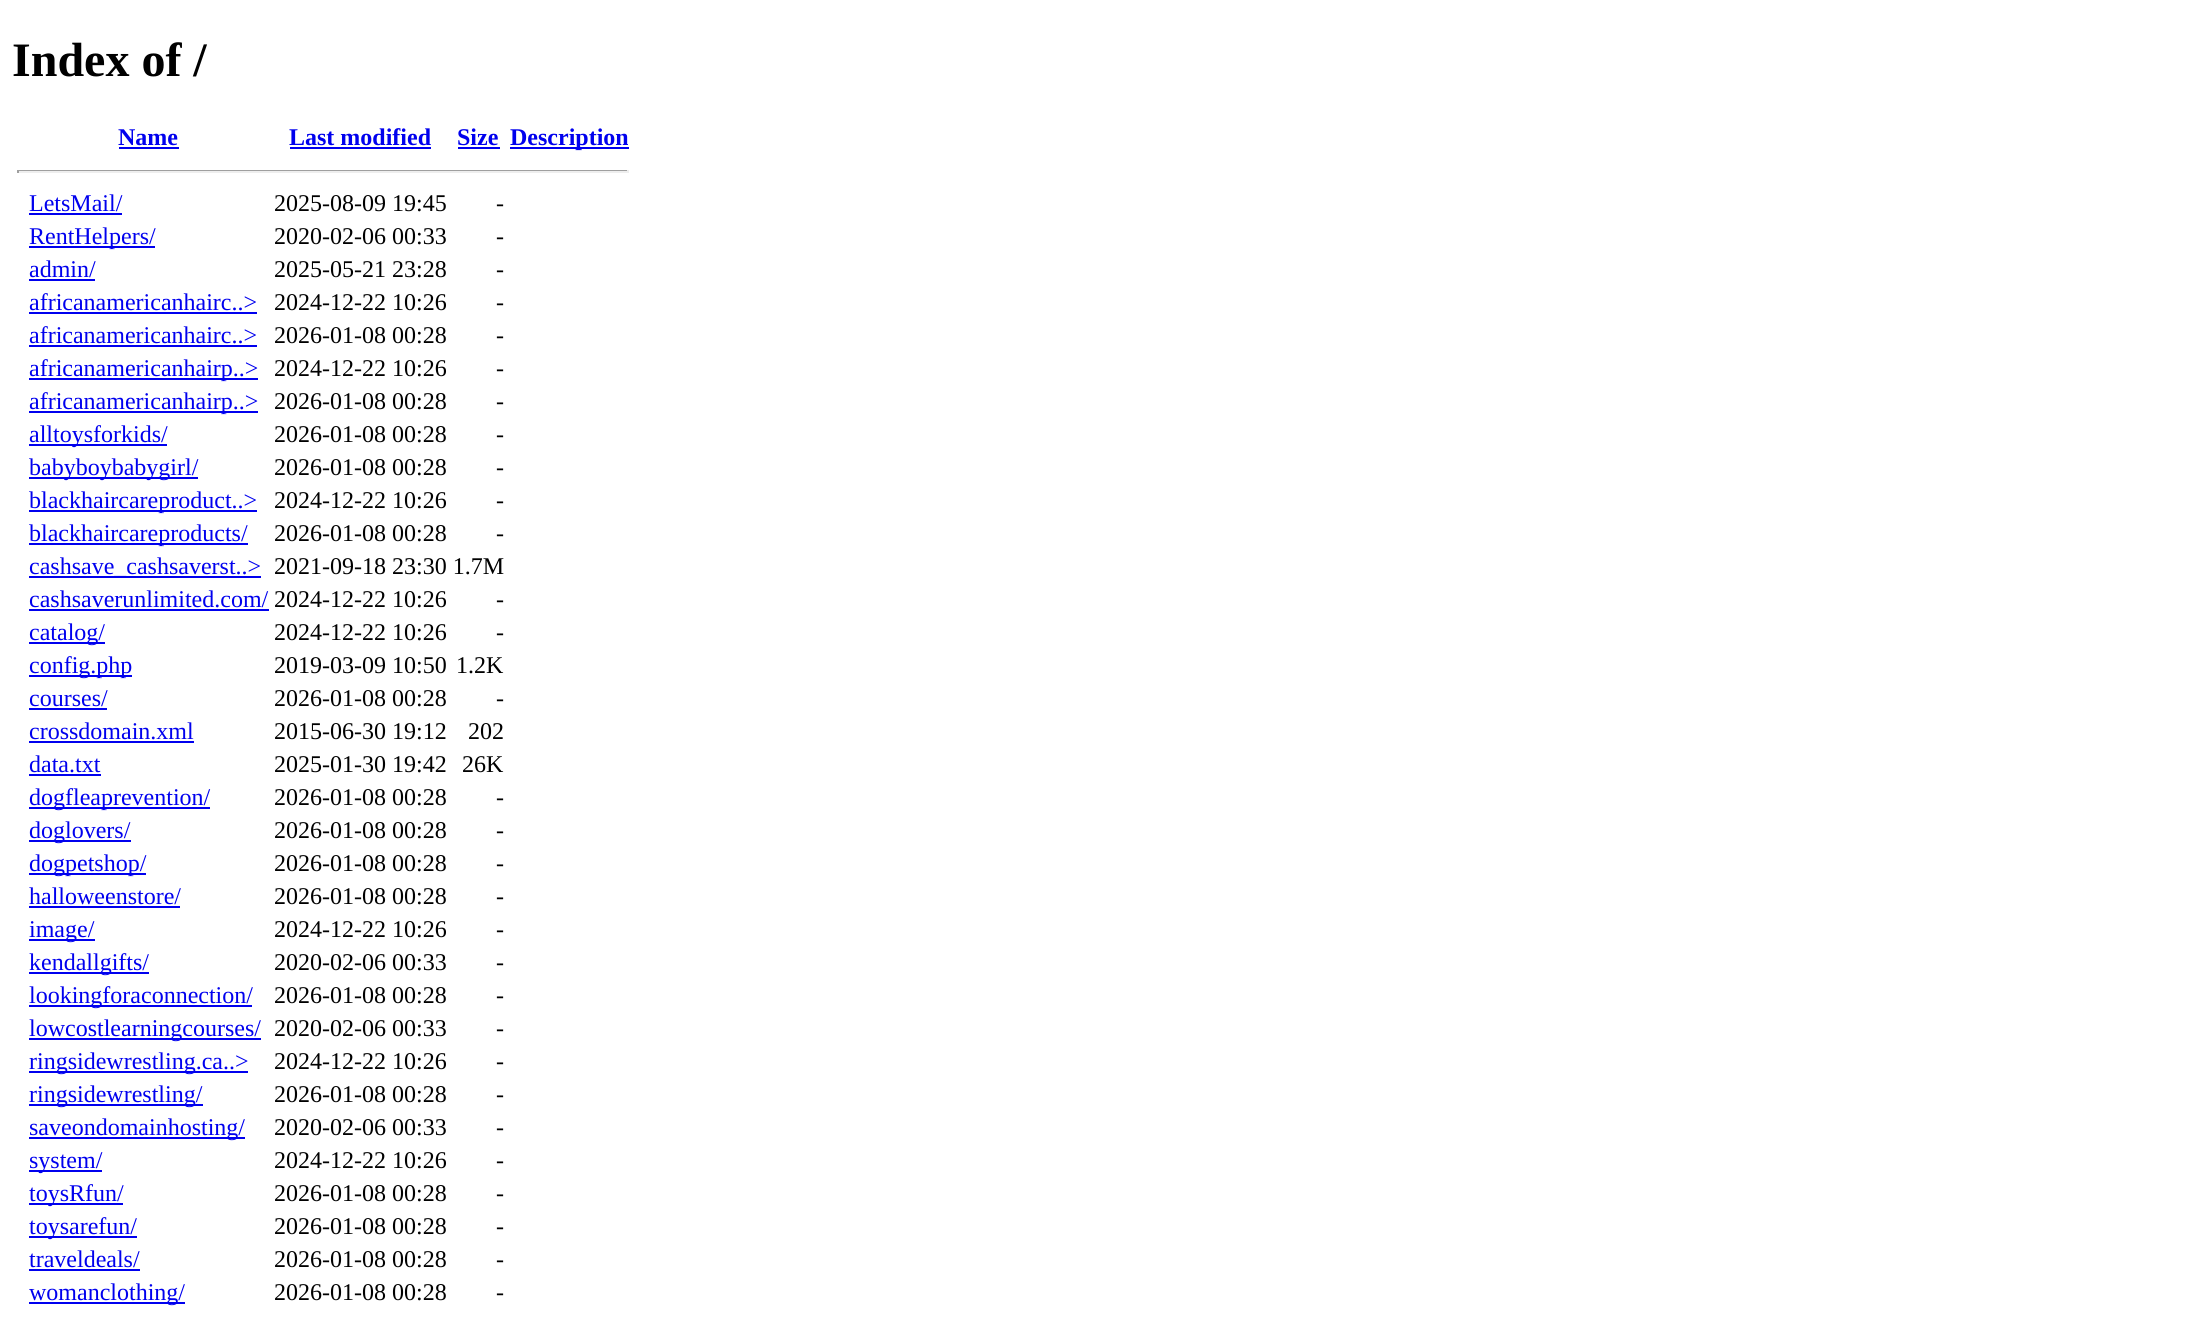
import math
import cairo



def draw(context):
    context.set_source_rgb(1, 1, 1)
    context.paint()
    context.set_source_rgb(0, 0, 238 / 255)
    context.rectangle(119, 147, 60, 2)
    context.fill()
    context.rectangle(290, 147, 141, 2)
    context.fill()
    context.rectangle(458, 147, 42, 2)
    context.fill()
    context.rectangle(510, 147, 119, 2)
    context.fill()
    context.set_source_rgb(159 / 255, 159 / 255, 159 / 255)
    context.rectangle(17, 170, 612, 1)
    context.fill()
    context.set_source_rgb(238 / 255, 238 / 255, 238 / 255)
    context.rectangle(627, 170, 2, 3)
    context.fill()
    context.rectangle(17, 171, 612, 2)
    context.fill()
    context.set_source_rgb(159 / 255, 159 / 255, 159 / 255)
    context.rectangle(17, 170, 2, 3)
    context.fill()
    context.set_source_rgb(0, 0, 238 / 255)
    context.rectangle(29, 213, 93, 2)
    context.fill()
    context.rectangle(29, 246, 126, 2)
    context.fill()
    context.rectangle(29, 279, 66, 2)
    context.fill()
    context.rectangle(29, 312, 228, 2)
    context.fill()
    context.rectangle(29, 345, 228, 2)
    context.fill()
    context.rectangle(29, 378, 229, 2)
    context.fill()
    context.rectangle(29, 411, 229, 2)
    context.fill()
    context.rectangle(29, 444, 138, 2)
    context.fill()
    context.rectangle(29, 477, 169, 2)
    context.fill()
    context.rectangle(29, 510, 228, 2)
    context.fill()
    context.rectangle(29, 543, 219, 2)
    context.fill()
    context.rectangle(29, 576, 232, 2)
    context.fill()
    context.rectangle(29, 609, 240, 2)
    context.fill()
    context.rectangle(29, 642, 76, 2)
    context.fill()
    context.rectangle(29, 675, 103, 2)
    context.fill()
    context.rectangle(29, 708, 78, 2)
    context.fill()
    context.rectangle(29, 741, 165, 2)
    context.fill()
    context.rectangle(29, 774, 72, 2)
    context.fill()
    context.rectangle(29, 807, 181, 2)
    context.fill()
    context.rectangle(29, 840, 102, 2)
    context.fill()
    context.rectangle(29, 873, 117, 2)
    context.fill()
    context.rectangle(29, 906, 151, 2)
    context.fill()
    context.rectangle(29, 939, 66, 2)
    context.fill()
    context.rectangle(29, 972, 120, 2)
    context.fill()
    context.rectangle(29, 1005, 223, 2)
    context.fill()
    context.rectangle(29, 1038, 232, 2)
    context.fill()
    context.rectangle(29, 1071, 219, 2)
    context.fill()
    context.rectangle(29, 1104, 174, 2)
    context.fill()
    context.rectangle(29, 1137, 216, 2)
    context.fill()
    context.rectangle(29, 1170, 73, 2)
    context.fill()
    context.rectangle(29, 1203, 94, 2)
    context.fill()
    context.rectangle(29, 1236, 108, 2)
    context.fill()
    context.rectangle(29, 1269, 111, 2)
    context.fill()
    context.rectangle(29, 1302, 156, 2)
    context.fill()
    context.select_font_face("Liberation Serif", cairo.FontSlant.NORMAL, cairo.FontWeight.BOLD)
    context.set_font_size(48)
    context.set_source_rgb(0, 0, 0)
    context.move_to(12, 76)
    context.show_text("Index of /")
    context.set_font_size(24)
    context.set_source_rgb(0, 0, 238 / 255)
    context.move_to(118, 145)
    context.show_text("Name")
    context.move_to(289, 145)
    context.show_text("Last modified")
    context.move_to(457, 145)
    context.show_text("Size")
    context.move_to(510, 145)
    context.show_text("Description")
    context.select_font_face("Liberation Serif")
    context.move_to(29, 211)
    context.show_text("LetsMail/")
    context.set_source_rgb(0, 0, 0)
    context.move_to(274, 211)
    context.show_text("2025-08-09 19:45")
    context.move_to(496, 211)
    context.show_text("-")
    context.set_source_rgb(0, 0, 238 / 255)
    context.move_to(29, 244)
    context.show_text("RentHelpers/")
    context.set_source_rgb(0, 0, 0)
    context.move_to(274, 244)
    context.show_text("2020-02-06 00:33")
    context.move_to(496, 244)
    context.show_text("-")
    context.set_source_rgb(0, 0, 238 / 255)
    context.move_to(29, 277)
    context.show_text("admin/")
    context.set_source_rgb(0, 0, 0)
    context.move_to(274, 277)
    context.show_text("2025-05-21 23:28")
    context.move_to(496, 277)
    context.show_text("-")
    context.set_source_rgb(0, 0, 238 / 255)
    context.move_to(29, 310)
    context.show_text("africanamericanhairc..>")
    context.set_source_rgb(0, 0, 0)
    context.move_to(274, 310)
    context.show_text("2024-12-22 10:26")
    context.move_to(496, 310)
    context.show_text("-")
    context.set_source_rgb(0, 0, 238 / 255)
    context.move_to(29, 343)
    context.show_text("africanamericanhairc..>")
    context.set_source_rgb(0, 0, 0)
    context.move_to(274, 343)
    context.show_text("2026-01-08 00:28")
    context.move_to(496, 343)
    context.show_text("-")
    context.set_source_rgb(0, 0, 238 / 255)
    context.move_to(29, 376)
    context.show_text("africanamericanhairp..>")
    context.set_source_rgb(0, 0, 0)
    context.move_to(274, 376)
    context.show_text("2024-12-22 10:26")
    context.move_to(496, 376)
    context.show_text("-")
    context.set_source_rgb(0, 0, 238 / 255)
    context.move_to(29, 409)
    context.show_text("africanamericanhairp..>")
    context.set_source_rgb(0, 0, 0)
    context.move_to(274, 409)
    context.show_text("2026-01-08 00:28")
    context.move_to(496, 409)
    context.show_text("-")
    context.set_source_rgb(0, 0, 238 / 255)
    context.move_to(29, 442)
    context.show_text("alltoysforkids/")
    context.set_source_rgb(0, 0, 0)
    context.move_to(274, 442)
    context.show_text("2026-01-08 00:28")
    context.move_to(496, 442)
    context.show_text("-")
    context.set_source_rgb(0, 0, 238 / 255)
    context.move_to(29, 475)
    context.show_text("babyboybabygirl/")
    context.set_source_rgb(0, 0, 0)
    context.move_to(274, 475)
    context.show_text("2026-01-08 00:28")
    context.move_to(496, 475)
    context.show_text("-")
    context.set_source_rgb(0, 0, 238 / 255)
    context.move_to(29, 508)
    context.show_text("blackhaircareproduct..>")
    context.set_source_rgb(0, 0, 0)
    context.move_to(274, 508)
    context.show_text("2024-12-22 10:26")
    context.move_to(496, 508)
    context.show_text("-")
    context.set_source_rgb(0, 0, 238 / 255)
    context.move_to(29, 541)
    context.show_text("blackhaircareproducts/")
    context.set_source_rgb(0, 0, 0)
    context.move_to(274, 541)
    context.show_text("2026-01-08 00:28")
    context.move_to(496, 541)
    context.show_text("-")
    context.set_source_rgb(0, 0, 238 / 255)
    context.move_to(29, 574)
    context.show_text("cashsave_cashsaverst..>")
    context.set_source_rgb(0, 0, 0)
    context.move_to(274, 574)
    context.show_text("2021-09-18 23:30 1.7M")
    context.set_source_rgb(0, 0, 238 / 255)
    context.move_to(29, 607)
    context.show_text("cashsaverunlimited.com/")
    context.set_source_rgb(0, 0, 0)
    context.move_to(274, 607)
    context.show_text("2024-12-22 10:26")
    context.move_to(496, 607)
    context.show_text("-")
    context.set_source_rgb(0, 0, 238 / 255)
    context.move_to(29, 640)
    context.show_text("catalog/")
    context.set_source_rgb(0, 0, 0)
    context.move_to(274, 640)
    context.show_text("2024-12-22 10:26")
    context.move_to(496, 640)
    context.show_text("-")
    context.set_source_rgb(0, 0, 238 / 255)
    context.move_to(29, 673)
    context.show_text("config.php")
    context.set_source_rgb(0, 0, 0)
    context.move_to(274, 673)
    context.show_text("2019-03-09 10:50")
    context.move_to(456, 673)
    context.show_text("1.2K")
    context.set_source_rgb(0, 0, 238 / 255)
    context.move_to(29, 706)
    context.show_text("courses/")
    context.set_source_rgb(0, 0, 0)
    context.move_to(274, 706)
    context.show_text("2026-01-08 00:28")
    context.move_to(496, 706)
    context.show_text("-")
    context.set_source_rgb(0, 0, 238 / 255)
    context.move_to(29, 739)
    context.show_text("crossdomain.xml")
    context.set_source_rgb(0, 0, 0)
    context.move_to(274, 739)
    context.show_text("2015-06-30 19:12")
    context.move_to(468, 739)
    context.show_text("202")
    context.set_source_rgb(0, 0, 238 / 255)
    context.move_to(29, 772)
    context.show_text("data.txt")
    context.set_source_rgb(0, 0, 0)
    context.move_to(274, 772)
    context.show_text("2025-01-30 19:42")
    context.move_to(462, 772)
    context.show_text("26K")
    context.set_source_rgb(0, 0, 238 / 255)
    context.move_to(29, 805)
    context.show_text("dogfleaprevention/")
    context.set_source_rgb(0, 0, 0)
    context.move_to(274, 805)
    context.show_text("2026-01-08 00:28")
    context.move_to(496, 805)
    context.show_text("-")
    context.set_source_rgb(0, 0, 238 / 255)
    context.move_to(29, 838)
    context.show_text("doglovers/")
    context.set_source_rgb(0, 0, 0)
    context.move_to(274, 838)
    context.show_text("2026-01-08 00:28")
    context.move_to(496, 838)
    context.show_text("-")
    context.set_source_rgb(0, 0, 238 / 255)
    context.move_to(29, 871)
    context.show_text("dogpetshop/")
    context.set_source_rgb(0, 0, 0)
    context.move_to(274, 871)
    context.show_text("2026-01-08 00:28")
    context.move_to(496, 871)
    context.show_text("-")
    context.set_source_rgb(0, 0, 238 / 255)
    context.move_to(29, 904)
    context.show_text("halloweenstore/")
    context.set_source_rgb(0, 0, 0)
    context.move_to(274, 904)
    context.show_text("2026-01-08 00:28")
    context.move_to(496, 904)
    context.show_text("-")
    context.set_source_rgb(0, 0, 238 / 255)
    context.move_to(29, 937)
    context.show_text("image/")
    context.set_source_rgb(0, 0, 0)
    context.move_to(274, 937)
    context.show_text("2024-12-22 10:26")
    context.move_to(496, 937)
    context.show_text("-")
    context.set_source_rgb(0, 0, 238 / 255)
    context.move_to(29, 970)
    context.show_text("kendallgifts/")
    context.set_source_rgb(0, 0, 0)
    context.move_to(274, 970)
    context.show_text("2020-02-06 00:33")
    context.move_to(496, 970)
    context.show_text("-")
    context.set_source_rgb(0, 0, 238 / 255)
    context.move_to(29, 1003)
    context.show_text("lookingforaconnection/")
    context.set_source_rgb(0, 0, 0)
    context.move_to(274, 1003)
    context.show_text("2026-01-08 00:28")
    context.move_to(496, 1003)
    context.show_text("-")
    context.set_source_rgb(0, 0, 238 / 255)
    context.move_to(29, 1036)
    context.show_text("lowcostlearningcourses/")
    context.set_source_rgb(0, 0, 0)
    context.move_to(274, 1036)
    context.show_text("2020-02-06 00:33")
    context.move_to(496, 1036)
    context.show_text("-")
    context.set_source_rgb(0, 0, 238 / 255)
    context.move_to(29, 1069)
    context.show_text("ringsidewrestling.ca..>")
    context.set_source_rgb(0, 0, 0)
    context.move_to(274, 1069)
    context.show_text("2024-12-22 10:26")
    context.move_to(496, 1069)
    context.show_text("-")
    context.set_source_rgb(0, 0, 238 / 255)
    context.move_to(29, 1102)
    context.show_text("ringsidewrestling/")
    context.set_source_rgb(0, 0, 0)
    context.move_to(274, 1102)
    context.show_text("2026-01-08 00:28")
    context.move_to(496, 1102)
    context.show_text("-")
    context.set_source_rgb(0, 0, 238 / 255)
    context.move_to(29, 1135)
    context.show_text("saveondomainhosting/")
    context.set_source_rgb(0, 0, 0)
    context.move_to(274, 1135)
    context.show_text("2020-02-06 00:33")
    context.move_to(496, 1135)
    context.show_text("-")
    context.set_source_rgb(0, 0, 238 / 255)
    context.move_to(29, 1168)
    context.show_text("system/")
    context.set_source_rgb(0, 0, 0)
    context.move_to(274, 1168)
    context.show_text("2024-12-22 10:26")
    context.move_to(496, 1168)
    context.show_text("-")
    context.set_source_rgb(0, 0, 238 / 255)
    context.move_to(29, 1201)
    context.show_text("toysRfun/")
    context.set_source_rgb(0, 0, 0)
    context.move_to(274, 1201)
    context.show_text("2026-01-08 00:28")
    context.move_to(496, 1201)
    context.show_text("-")
    context.set_source_rgb(0, 0, 238 / 255)
    context.move_to(29, 1234)
    context.show_text("toysarefun/")
    context.set_source_rgb(0, 0, 0)
    context.move_to(274, 1234)
    context.show_text("2026-01-08 00:28")
    context.move_to(496, 1234)
    context.show_text("-")
    context.set_source_rgb(0, 0, 238 / 255)
    context.move_to(29, 1267)
    context.show_text("traveldeals/")
    context.set_source_rgb(0, 0, 0)
    context.move_to(274, 1267)
    context.show_text("2026-01-08 00:28")
    context.move_to(496, 1267)
    context.show_text("-")
    context.set_source_rgb(0, 0, 238 / 255)
    context.move_to(29, 1300)
    context.show_text("womanclothing/")
    context.set_source_rgb(0, 0, 0)
    context.move_to(274, 1300)
    context.show_text("2026-01-08 00:28")
    context.move_to(496, 1300)
    context.show_text("-")


surface = cairo.ImageSurface(cairo.Format.RGB24, 2197, 1322)
context = cairo.Context(surface)
options = cairo.FontOptions()
options.set_hint_metrics(cairo.HintMetrics.OFF)
options.set_hint_style(cairo.HintStyle.NONE)
context.set_font_options(options)
context.set_miter_limit(4)
draw(context)
surface.write_to_png("out.png")
